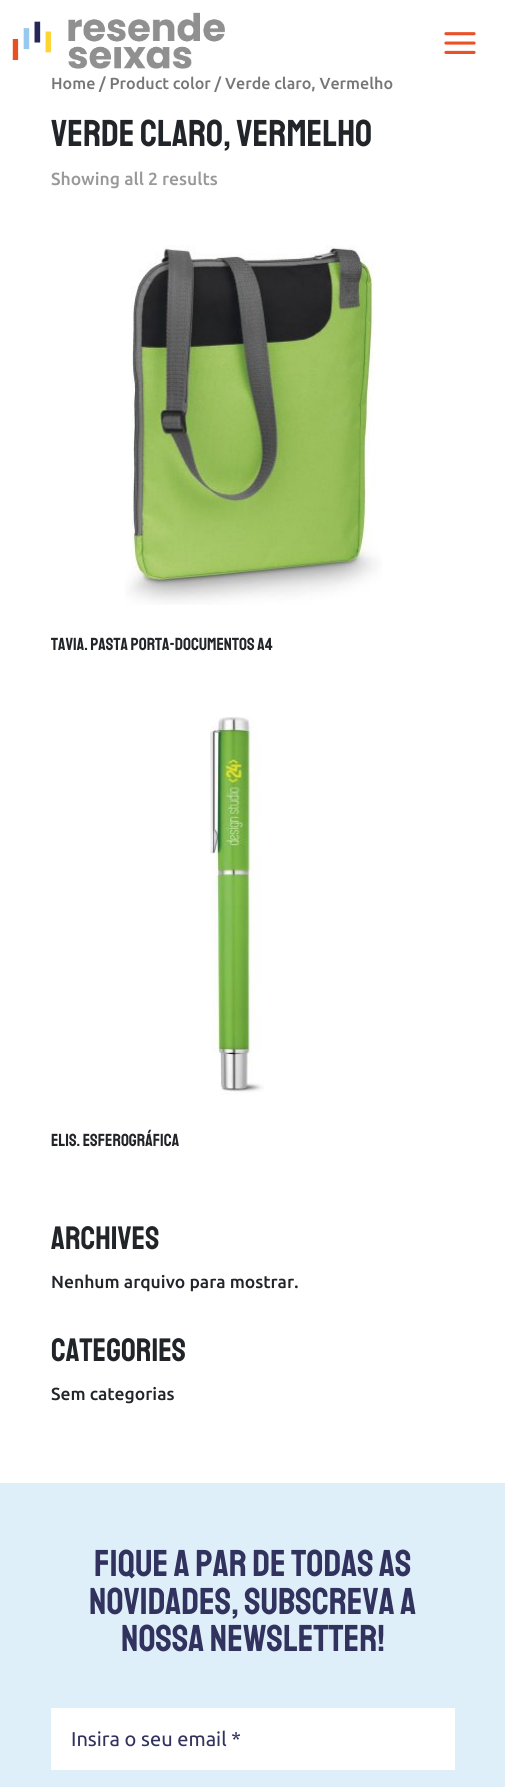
import math
import cairo



def draw_image(context, path, x, y, w, h):
    context.save()
    context.set_source_surface(cairo.ImageSurface.create_from_png(path), x, y)
    context.rectangle(x, y, w, h)
    context.fill()
    context.restore()


def draw(context):
    context.set_source_rgb(1, 1, 1)
    context.paint()
    draw_image(context, "images/1.png", 12, 12, 213, 57)
    draw_image(context, "images/2.png", 444, 32, 32, 22)
    draw_image(context, "images/3.png", 125, 245, 257, 360)
    draw_image(context, "images/4.png", 210, 717, 54, 378)
    context.set_source_rgb(223 / 255, 239 / 255, 250 / 255)
    context.rectangle(0, 1483, 505, 304)
    context.fill()
    context.set_source_rgb(1, 1, 1)
    context.rectangle(51, 1708, 404, 62)
    context.fill()
    context.select_font_face("Ubuntu Medium")
    context.set_font_size(16.1)
    context.set_source_rgb(118 / 255, 118 / 255, 118 / 255)
    context.move_to(51, 89)
    context.show_text("Home / Product color / Verde claro, Vermelho")
    context.select_font_face("Staatliches")
    context.set_font_size(37.5)
    context.set_source_rgb(33 / 255, 37 / 255, 41 / 255)
    context.move_to(51, 146)
    context.show_text("Verde claro, Vermelho")
    context.select_font_face("Ubuntu Medium")
    context.set_font_size(17.5)
    context.set_source_rgb(153 / 255, 153 / 255, 153 / 255)
    context.move_to(51, 185)
    context.show_text("Showing all 2 results")
    context.select_font_face("Staatliches")
    context.set_source_rgb(33 / 255, 37 / 255, 41 / 255)
    context.move_to(51, 650)
    context.show_text("Tavia. Pasta porta-documentos A4")
    context.move_to(51, 1146)
    context.show_text("Elis. Esferográfica")
    context.set_font_size(32.5)
    context.move_to(51, 1249)
    context.show_text("Archives")
    context.select_font_face("Ubuntu Medium")
    context.set_font_size(17.5)
    context.move_to(51, 1288)
    context.show_text("Nenhum arquivo para mostrar.")
    context.select_font_face("Staatliches")
    context.set_font_size(32.5)
    context.move_to(51, 1361)
    context.show_text("Categories")
    context.select_font_face("Ubuntu Medium")
    context.set_font_size(17.5)
    context.move_to(51, 1400)
    context.show_text("Sem categorias")
    context.select_font_face("Staatliches")
    context.set_font_size(37.5)
    context.set_source_rgb(49 / 255, 50 / 255, 93 / 255)
    context.move_to(94, 1576)
    context.show_text("Fique a par de todas as")
    context.move_to(89, 1614)
    context.show_text("novidades, subscreva a")
    context.move_to(121, 1651)
    context.show_text("nossa newsletter!")
    context.select_font_face("Ubuntu")
    context.set_font_size(20)
    context.move_to(71, 1746)
    context.show_text("Insira o seu email *")


surface = cairo.ImageSurface(cairo.Format.RGB24, 505, 1787)
context = cairo.Context(surface)
options = cairo.FontOptions()
options.set_hint_metrics(cairo.HintMetrics.OFF)
options.set_hint_style(cairo.HintStyle.NONE)
context.set_font_options(options)
context.set_miter_limit(4)
draw(context)
surface.write_to_png("out.png")
